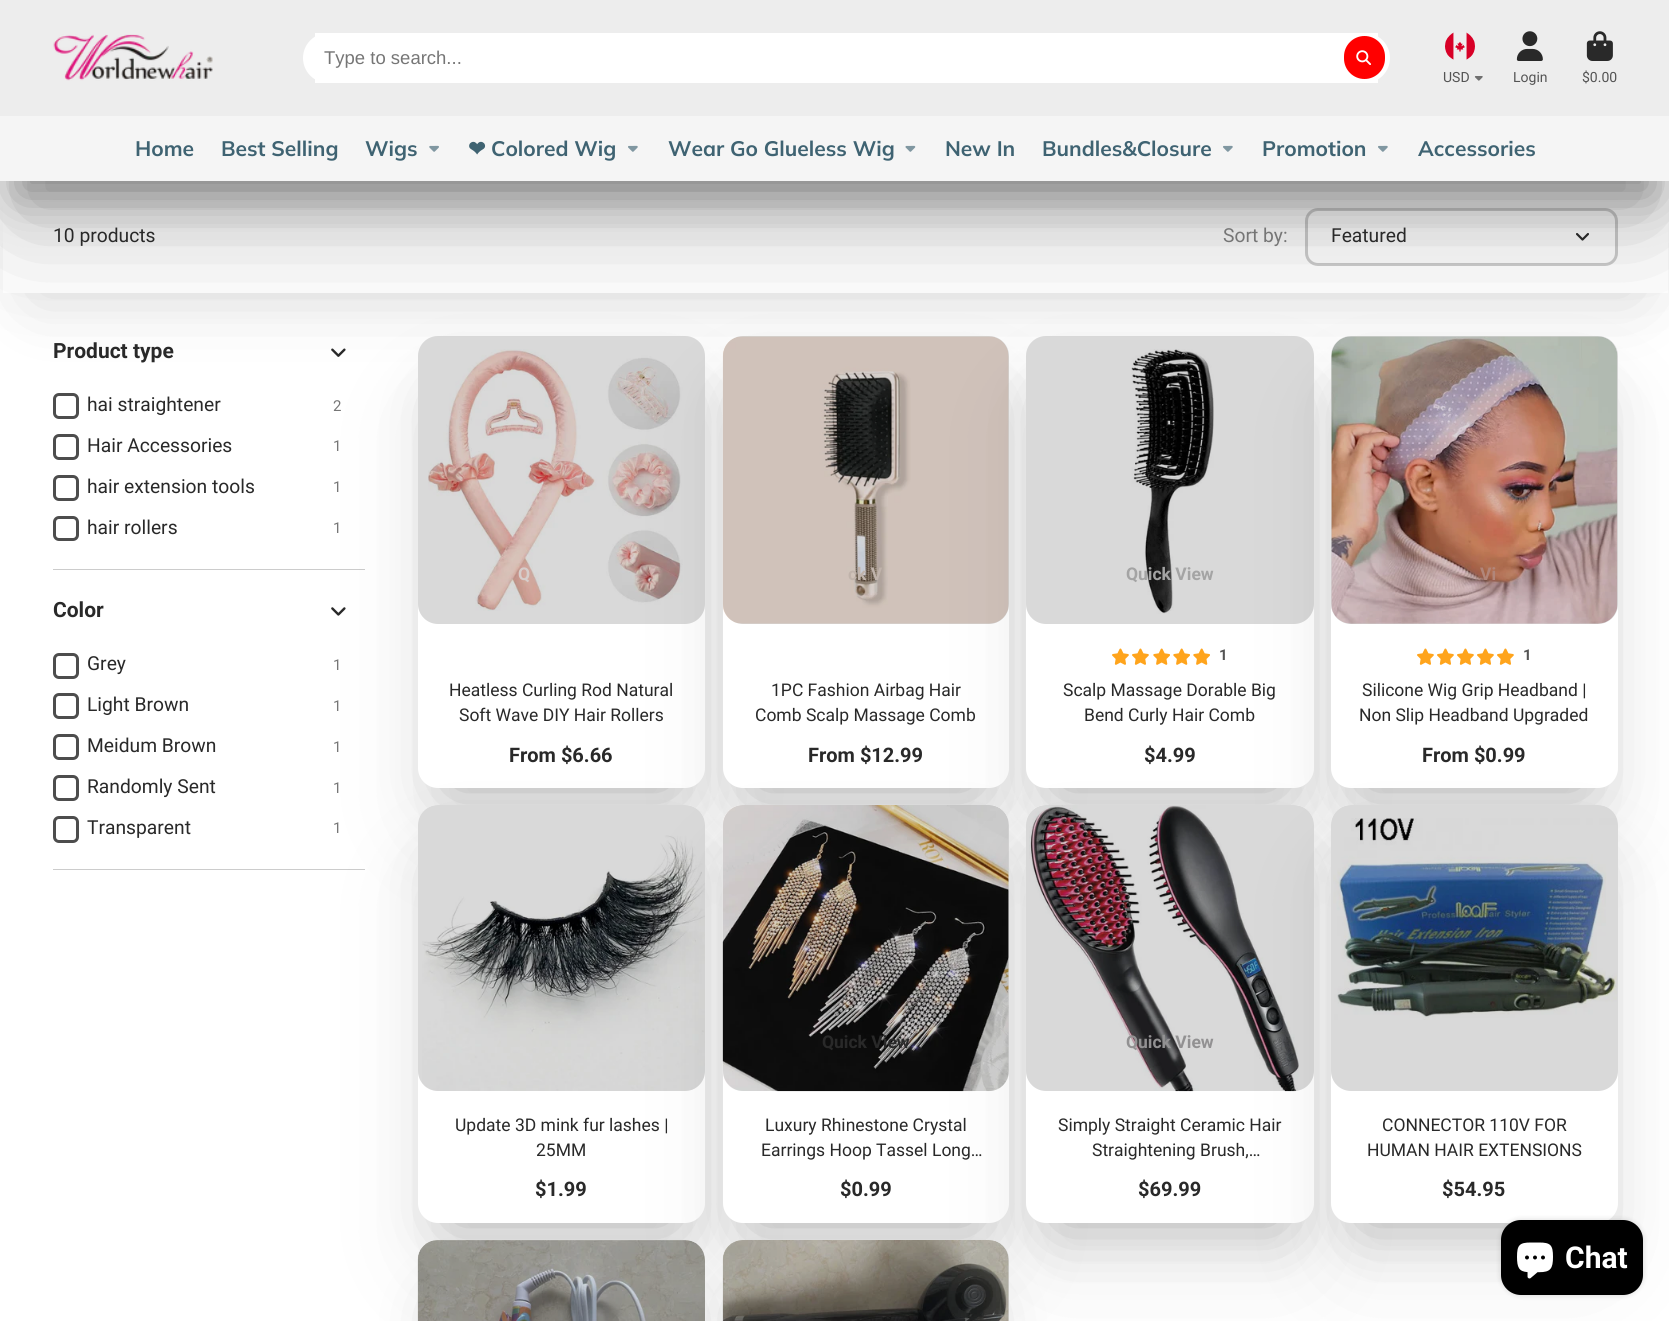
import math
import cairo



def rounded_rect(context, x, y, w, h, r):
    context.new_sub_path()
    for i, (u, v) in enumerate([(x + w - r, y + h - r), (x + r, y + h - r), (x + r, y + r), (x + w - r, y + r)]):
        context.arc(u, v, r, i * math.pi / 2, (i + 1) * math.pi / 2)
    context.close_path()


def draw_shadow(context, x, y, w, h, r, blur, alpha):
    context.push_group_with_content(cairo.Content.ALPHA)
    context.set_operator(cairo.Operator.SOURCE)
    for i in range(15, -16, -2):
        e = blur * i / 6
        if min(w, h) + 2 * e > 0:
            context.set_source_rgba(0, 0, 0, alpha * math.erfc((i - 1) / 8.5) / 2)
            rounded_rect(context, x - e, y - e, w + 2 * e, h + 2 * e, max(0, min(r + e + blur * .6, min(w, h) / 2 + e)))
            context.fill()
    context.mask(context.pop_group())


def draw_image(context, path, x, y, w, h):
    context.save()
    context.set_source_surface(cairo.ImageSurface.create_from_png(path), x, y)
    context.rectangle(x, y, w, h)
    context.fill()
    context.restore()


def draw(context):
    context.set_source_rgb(1, 1, 1)
    context.paint()
    context.set_source_rgb(0, 0, 0)
    draw_shadow(context, 38, 256, 1595, 37, 0, 37.5, 0.15)
    context.set_source_rgb(1, 1, 1)
    context.rectangle(3, 202, 1665, 91)
    context.fill()
    rounded_rect(context, 1306.5, 209.5, 310, 55, 11.5)
    context.set_source_rgb(204 / 255, 204 / 255, 204 / 255)
    context.set_line_width(3)
    context.stroke()
    draw_image(context, "images/10.png", 1576, 233, 13, 8)
    context.set_source_rgb(28 / 255, 28 / 255, 28 / 255)
    draw_shadow(context, 18, 50, 1635, 146, 0, 24, 0.4)
    draw_image(context, "images/11.png", 331, 348, 15, 9)
    context.set_source_rgb(204 / 255, 204 / 255, 204 / 255)
    context.rectangle(53, 569, 312, 1)
    context.fill()
    context.rectangle(53, 869, 312, 1)
    context.fill()
    context.set_source_rgb(28 / 255, 28 / 255, 28 / 255)
    draw_shadow(context, 450, 403, 223, 385, 0, 33, 0.3)
    draw_image(context, "images/12.png", 331, 607, 15, 9)
    draw_shadow(context, 440, 413, 244, 407, 0, 54.5, 0.1)
    context.set_source_rgb(1, 1, 1)
    rounded_rect(context, 418, 336, 287, 452, 20)
    context.fill()
    draw_image(context, "images/13.png", 428, 349, 255, 262)
    context.set_source_rgba(0, 0, 0, 0.15)
    rounded_rect(context, 418, 336, 287, 288, 20)
    context.fill()
    context.set_source_rgb(28 / 255, 28 / 255, 28 / 255)
    draw_shadow(context, 755, 403, 221, 385, 0, 33, 0.3)
    draw_shadow(context, 745, 413, 243, 407, 0, 54.5, 0.1)
    context.set_source_rgb(1, 1, 1)
    rounded_rect(context, 723, 336, 286, 452, 20)
    context.fill()
    draw_image(context, "images/14.png", 722, 336, 287, 288)
    context.set_source_rgba(0, 0, 0, 0.15)
    rounded_rect(context, 723, 336, 286, 288, 20)
    context.fill()
    context.set_source_rgb(28 / 255, 28 / 255, 28 / 255)
    draw_shadow(context, 1059, 403, 222, 385, 0, 33, 0.3)
    draw_shadow(context, 1049, 413, 244, 407, 0, 54.5, 0.1)
    context.set_source_rgb(1, 1, 1)
    rounded_rect(context, 1026, 336, 288, 452, 20)
    context.fill()
    draw_image(context, "images/15.png", 1131, 349, 83, 265)
    context.set_source_rgba(0, 0, 0, 0.15)
    rounded_rect(context, 1026, 336, 288, 288, 20)
    context.fill()
    context.set_source_rgb(28 / 255, 28 / 255, 28 / 255)
    draw_shadow(context, 1364, 403, 221, 385, 0, 33, 0.3)
    draw_image(context, "images/17.png", 1173, 648, 17, 17)
    draw_image(context, "images/17.png", 1193, 648, 17, 17)
    draw_shadow(context, 1354, 413, 242, 407, 0, 54.5, 0.1)
    context.set_source_rgb(1, 1, 1)
    rounded_rect(context, 1331, 336, 287, 452, 20)
    context.fill()
    draw_image(context, "images/18.png", 1331, 336, 287, 288)
    context.set_source_rgba(0, 0, 0, 0.15)
    rounded_rect(context, 1331, 336, 287, 288, 20)
    context.fill()
    context.set_source_rgb(28 / 255, 28 / 255, 28 / 255)
    draw_shadow(context, 18, 73, 1635, 146, 0, 54.5, 0.3)
    context.set_source_rgb(237 / 255, 237 / 255, 237 / 255)
    context.rectangle(0, 0, 1669, 116)
    context.fill()
    draw_image(context, "images/1.png", 53, 34, 160, 47)
    context.set_source_rgb(1, 1, 1)
    context.rectangle(315, 33, 1063, 50)
    context.fill()
    rounded_rect(context, 303, 33, 1087, 50, 25)
    context.fill()
    context.set_source_rgb(1, 0, 0)
    rounded_rect(context, 1344, 36, 41, 43, 20.5)
    context.fill()
    draw_image(context, "images/2.png", 1356, 50, 15, 15)
    draw_image(context, "images/3.png", 1445, 32, 30, 28)
    draw_image(context, "images/4.png", 1474, 76, 9, 5)
    draw_image(context, "images/5.png", 1516, 31, 27, 30)
    draw_image(context, "images/6.png", 1586, 31, 27, 30)
    context.set_source_rgb(245 / 255, 245 / 255, 245 / 255)
    context.rectangle(0, 116, 1669, 65)
    context.fill()
    draw_image(context, "images/7.png", 429, 145, 10, 7)
    draw_image(context, "images/8.png", 628, 145, 10, 7)
    draw_image(context, "images/9.png", 905, 145, 11, 7)
    draw_image(context, "images/8.png", 1223, 145, 10, 7)
    draw_image(context, "images/8.png", 1378, 145, 10, 7)
    rounded_rect(context, 54.5, 394.5, 23, 23, 4.5)
    context.set_source_rgb(77 / 255, 77 / 255, 77 / 255)
    context.stroke()
    rounded_rect(context, 54.5, 435.5, 23, 23, 4.5)
    context.stroke()
    rounded_rect(context, 54.5, 476.5, 23, 23, 4.5)
    context.stroke()
    rounded_rect(context, 54.5, 517.5, 23, 22, 4.5)
    context.stroke()
    rounded_rect(context, 54.5, 654.5, 23, 23, 4.5)
    context.stroke()
    rounded_rect(context, 54.5, 694.5, 23, 23, 4.5)
    context.stroke()
    rounded_rect(context, 54.5, 735.5, 23, 23, 4.5)
    context.stroke()
    rounded_rect(context, 54.5, 776.5, 23, 23, 4.5)
    context.stroke()
    rounded_rect(context, 54.5, 817.5, 23, 24, 4.5)
    context.stroke()
    draw_image(context, "images/16.png", 1112, 648, 17, 17)
    draw_image(context, "images/16.png", 1132, 648, 17, 17)
    draw_image(context, "images/17.png", 1153, 648, 17, 17)
    draw_image(context, "images/16.png", 1417, 648, 17, 17)
    draw_image(context, "images/16.png", 1437, 648, 17, 17)
    draw_image(context, "images/16.png", 1457, 648, 17, 17)
    draw_image(context, "images/16.png", 1477, 648, 17, 17)
    draw_image(context, "images/16.png", 1497, 648, 17, 17)
    context.set_source_rgb(28 / 255, 28 / 255, 28 / 255)
    draw_shadow(context, 450, 871, 223, 352, 0, 33, 0.3)
    draw_shadow(context, 440, 881, 244, 374, 0, 54.5, 0.1)
    context.set_source_rgb(1, 1, 1)
    rounded_rect(context, 418, 805, 287, 418, 20)
    context.fill()
    rounded_rect(context, 418, 805, 287, 286, 20)
    context.fill()
    draw_image(context, "images/19.png", 422, 835, 283, 256)
    context.set_source_rgba(0, 0, 0, 0.15)
    rounded_rect(context, 418, 805, 287, 286, 20)
    context.fill()
    context.set_source_rgb(28 / 255, 28 / 255, 28 / 255)
    draw_shadow(context, 755, 871, 221, 352, 0, 33, 0.3)
    draw_shadow(context, 745, 881, 243, 374, 0, 54.5, 0.1)
    context.set_source_rgb(1, 1, 1)
    rounded_rect(context, 723, 805, 286, 418, 20)
    context.fill()
    rounded_rect(context, 723, 805, 286, 286, 20)
    context.fill()
    draw_image(context, "images/20.png", 722, 805, 287, 287)
    context.set_source_rgba(0, 0, 0, 0.15)
    rounded_rect(context, 723, 805, 286, 286, 20)
    context.fill()
    context.set_source_rgb(28 / 255, 28 / 255, 28 / 255)
    draw_shadow(context, 1059, 871, 222, 352, 0, 33, 0.3)
    draw_shadow(context, 1049, 881, 244, 374, 0, 54.5, 0.1)
    context.set_source_rgb(1, 1, 1)
    rounded_rect(context, 1026, 805, 288, 418, 20)
    context.fill()
    rounded_rect(context, 1026, 805, 288, 286, 20)
    context.fill()
    draw_image(context, "images/21.png", 1029, 805, 270, 287)
    context.set_source_rgba(0, 0, 0, 0.15)
    rounded_rect(context, 1026, 805, 288, 286, 20)
    context.fill()
    context.set_source_rgb(28 / 255, 28 / 255, 28 / 255)
    draw_shadow(context, 1364, 871, 221, 352, 0, 33, 0.3)
    draw_shadow(context, 1354, 881, 242, 374, 0, 54.5, 0.1)
    context.set_source_rgb(1, 1, 1)
    rounded_rect(context, 1331, 805, 287, 418, 20)
    context.fill()
    rounded_rect(context, 1331, 805, 287, 286, 20)
    context.fill()
    draw_image(context, "images/22.png", 1333, 818, 284, 202)
    context.set_source_rgba(0, 0, 0, 0.15)
    rounded_rect(context, 1331, 805, 287, 286, 20)
    context.fill()
    context.set_source_rgb(28 / 255, 28 / 255, 28 / 255)
    draw_shadow(context, 450, 1306, 223, 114, 0, 33, 0.3)
    context.set_source_rgb(1, 1, 1)
    rounded_rect(context, 418, 1240, 287, 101, 20)
    context.fill()
    draw_image(context, "images/23.png", 417, 1240, 288, 81)
    context.set_source_rgba(0, 0, 0, 0.15)
    rounded_rect(context, 418, 1240, 287, 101, 20)
    context.fill()
    context.set_source_rgb(28 / 255, 28 / 255, 28 / 255)
    draw_shadow(context, 755, 1306, 221, 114, 0, 33, 0.3)
    context.set_source_rgb(1, 1, 1)
    rounded_rect(context, 723, 1240, 286, 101, 20)
    context.fill()
    draw_image(context, "images/24.png", 722, 1240, 287, 81)
    context.set_source_rgba(0, 0, 0, 0.15)
    rounded_rect(context, 723, 1240, 286, 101, 20)
    context.fill()
    context.set_source_rgb(0, 0, 0)
    draw_shadow(context, 1501, 1220, 142, 75, 20, 3, 0.15)
    context.set_source_rgb(0, 0, 0)
    rounded_rect(context, 1501, 1220, 142, 75, 20)
    context.fill()
    draw_image(context, "images/25.png", 1517, 1242, 36, 37)
    context.select_font_face("Liberation Sans")
    context.set_font_size(18.5)
    context.set_source_rgb(118 / 255, 118 / 255, 118 / 255)
    context.move_to(324, 64)
    context.show_text("Type to search...")
    context.select_font_face("Roboto")
    context.set_font_size(14)
    context.set_source_rgb(84 / 255, 84 / 255, 84 / 255)
    context.move_to(1443, 82)
    context.show_text("USD")
    context.move_to(1513, 82)
    context.show_text("Login")
    context.move_to(1582, 82)
    context.show_text("$0.00")
    context.select_font_face("Muli", cairo.FontSlant.NORMAL, cairo.FontWeight.BOLD)
    context.set_font_size(21)
    context.set_source_rgb(63 / 255, 99 / 255, 114 / 255)
    context.move_to(135, 156)
    context.show_text("Home")
    context.move_to(221, 156)
    context.show_text("Best Selling")
    context.move_to(365, 156)
    context.show_text("Wigs")
    context.select_font_face("DejaVu Sans", cairo.FontSlant.NORMAL, cairo.FontWeight.BOLD)
    context.move_to(468, 156)
    context.show_text("❤")
    context.select_font_face("Muli", cairo.FontSlant.NORMAL, cairo.FontWeight.BOLD)
    context.move_to(491, 156)
    context.show_text("Colored Wig")
    context.move_to(668, 156)
    context.show_text("Wear Go Glueless Wig")
    context.move_to(945, 156)
    context.show_text("New In")
    context.move_to(1042, 156)
    context.show_text("Bundles&Closure")
    context.move_to(1262, 156)
    context.show_text("Promotion")
    context.move_to(1418, 156)
    context.show_text("Accessories")
    context.select_font_face("Roboto")
    context.set_font_size(19.25)
    context.set_source_rgb(41 / 255, 41 / 255, 41 / 255)
    context.move_to(53, 242)
    context.show_text("10 products")
    context.set_source_rgb(118 / 255, 118 / 255, 118 / 255)
    context.move_to(1223, 242)
    context.show_text("Sort by:")
    context.set_source_rgb(41 / 255, 41 / 255, 41 / 255)
    context.move_to(1331, 242)
    context.show_text("Featured")
    context.select_font_face("Roboto", cairo.FontSlant.NORMAL, cairo.FontWeight.BOLD)
    context.set_font_size(21)
    context.move_to(53, 358)
    context.show_text("Product type")
    context.select_font_face("Roboto")
    context.set_font_size(19.25)
    context.move_to(87, 411)
    context.show_text("hai straightener")
    context.set_font_size(15)
    context.set_source_rgb(118 / 255, 118 / 255, 118 / 255)
    context.move_to(333, 411)
    context.show_text("2")
    context.set_font_size(19.25)
    context.set_source_rgb(41 / 255, 41 / 255, 41 / 255)
    context.move_to(87, 452)
    context.show_text("Hair Accessories")
    context.set_font_size(15)
    context.set_source_rgb(118 / 255, 118 / 255, 118 / 255)
    context.move_to(333, 451)
    context.show_text("1")
    context.set_font_size(19.25)
    context.set_source_rgb(41 / 255, 41 / 255, 41 / 255)
    context.move_to(87, 493)
    context.show_text("hair extension tools")
    context.set_font_size(15)
    context.set_source_rgb(118 / 255, 118 / 255, 118 / 255)
    context.move_to(333, 492)
    context.show_text("1")
    context.set_font_size(19.25)
    context.set_source_rgb(41 / 255, 41 / 255, 41 / 255)
    context.move_to(87, 534)
    context.show_text("hair rollers")
    context.set_font_size(15)
    context.set_source_rgb(118 / 255, 118 / 255, 118 / 255)
    context.move_to(333, 533)
    context.show_text("1")
    context.select_font_face("Roboto", cairo.FontSlant.NORMAL, cairo.FontWeight.BOLD)
    context.set_font_size(21)
    context.set_source_rgb(41 / 255, 41 / 255, 41 / 255)
    context.move_to(53, 617)
    context.show_text("Color")
    context.select_font_face("Roboto")
    context.set_font_size(19.25)
    context.move_to(87, 670)
    context.show_text("Grey")
    context.set_font_size(15)
    context.set_source_rgb(118 / 255, 118 / 255, 118 / 255)
    context.move_to(333, 670)
    context.show_text("1")
    context.set_font_size(19.25)
    context.set_source_rgb(41 / 255, 41 / 255, 41 / 255)
    context.move_to(87, 711)
    context.show_text("Light Brown")
    context.set_font_size(15)
    context.set_source_rgb(118 / 255, 118 / 255, 118 / 255)
    context.move_to(333, 711)
    context.show_text("1")
    context.set_font_size(19.25)
    context.set_source_rgb(41 / 255, 41 / 255, 41 / 255)
    context.move_to(87, 752)
    context.show_text("Meidum Brown")
    context.set_font_size(15)
    context.set_source_rgb(118 / 255, 118 / 255, 118 / 255)
    context.move_to(333, 752)
    context.show_text("1")
    context.set_font_size(19.25)
    context.set_source_rgb(41 / 255, 41 / 255, 41 / 255)
    context.move_to(87, 793)
    context.show_text("Randomly Sent")
    context.set_font_size(15)
    context.set_source_rgb(118 / 255, 118 / 255, 118 / 255)
    context.move_to(333, 793)
    context.show_text("1")
    context.set_font_size(19.25)
    context.set_source_rgb(41 / 255, 41 / 255, 41 / 255)
    context.move_to(87, 834)
    context.show_text("Transparent")
    context.set_font_size(15)
    context.set_source_rgb(118 / 255, 118 / 255, 118 / 255)
    context.move_to(333, 833)
    context.show_text("1")
    context.select_font_face("Roboto", cairo.FontSlant.NORMAL, cairo.FontWeight.BOLD)
    context.set_font_size(17.5)
    context.set_source_rgb(214 / 255, 205 / 255, 203 / 255)
    context.move_to(518, 580)
    context.show_text("Q")
    context.select_font_face("Roboto")
    context.set_source_rgb(41 / 255, 41 / 255, 41 / 255)
    context.move_to(449, 696)
    context.show_text("Heatless Curling Rod Natural")
    context.move_to(459, 721)
    context.show_text("Soft Wave DIY Hair Rollers")
    context.select_font_face("Roboto", cairo.FontSlant.NORMAL, cairo.FontWeight.BOLD)
    context.set_font_size(20)
    context.move_to(509, 762)
    context.show_text("From $6.66")
    context.set_font_size(17.5)
    context.set_source_rgb(192 / 255, 179 / 255, 171 / 255)
    context.move_to(848, 580)
    context.show_text("ck V")
    context.select_font_face("Roboto")
    context.set_source_rgb(41 / 255, 41 / 255, 41 / 255)
    context.move_to(771, 696)
    context.show_text("1PC Fashion Airbag Hair")
    context.move_to(755, 721)
    context.show_text("Comb Scalp Massage Comb")
    context.select_font_face("Roboto", cairo.FontSlant.NORMAL, cairo.FontWeight.BOLD)
    context.set_font_size(20)
    context.move_to(808, 762)
    context.show_text("From $12.99")
    context.set_font_size(17.5)
    context.set_source_rgb(164 / 255, 164 / 255, 164 / 255)
    context.move_to(1126, 580)
    context.show_text("Quick View")
    context.set_font_size(15)
    context.set_source_rgb(84 / 255, 84 / 255, 84 / 255)
    context.move_to(1219, 660)
    context.show_text("1")
    context.select_font_face("Roboto")
    context.set_font_size(17.5)
    context.set_source_rgb(41 / 255, 41 / 255, 41 / 255)
    context.move_to(1063, 696)
    context.show_text("Scalp Massage Dorable Big")
    context.move_to(1084, 721)
    context.show_text("Bend Curly Hair Comb")
    context.select_font_face("Roboto", cairo.FontSlant.NORMAL, cairo.FontWeight.BOLD)
    context.set_font_size(20)
    context.move_to(1144, 762)
    context.show_text("$4.99")
    context.set_font_size(17.5)
    context.set_source_rgb(177 / 255, 134 / 255, 122 / 255)
    context.move_to(1480, 580)
    context.show_text("Vi")
    context.set_font_size(15)
    context.set_source_rgb(84 / 255, 84 / 255, 84 / 255)
    context.move_to(1523, 660)
    context.show_text("1")
    context.select_font_face("Roboto")
    context.set_font_size(17.5)
    context.set_source_rgb(41 / 255, 41 / 255, 41 / 255)
    context.move_to(1362, 696)
    context.show_text("Silicone Wig Grip Headband |")
    context.move_to(1359, 721)
    context.show_text("Non Slip Headband Upgraded")
    context.select_font_face("Roboto", cairo.FontSlant.NORMAL, cairo.FontWeight.BOLD)
    context.set_font_size(20)
    context.move_to(1422, 762)
    context.show_text("From $0.99")
    context.select_font_face("Roboto")
    context.set_font_size(17.5)
    context.move_to(455, 1131)
    context.show_text("Update 3D mink fur lashes |")
    context.move_to(536, 1156)
    context.show_text("25MM")
    context.select_font_face("Roboto", cairo.FontSlant.NORMAL, cairo.FontWeight.BOLD)
    context.set_font_size(20)
    context.move_to(535, 1196)
    context.show_text("$1.99")
    context.set_font_size(17.5)
    context.move_to(822, 1048)
    context.show_text("Quick View")
    context.select_font_face("Roboto")
    context.move_to(765, 1131)
    context.show_text("Luxury Rhinestone Crystal")
    context.move_to(761, 1156)
    context.show_text("Earrings Hoop Tassel Long…")
    context.select_font_face("Roboto", cairo.FontSlant.NORMAL, cairo.FontWeight.BOLD)
    context.set_font_size(20)
    context.move_to(840, 1196)
    context.show_text("$0.99")
    context.set_font_size(17.5)
    context.set_source_rgb(146 / 255, 145 / 255, 146 / 255)
    context.move_to(1126, 1048)
    context.show_text("Quick View")
    context.select_font_face("Roboto")
    context.set_source_rgb(41 / 255, 41 / 255, 41 / 255)
    context.move_to(1058, 1131)
    context.show_text("Simply Straight Ceramic Hair")
    context.move_to(1092, 1156)
    context.show_text("Straightening Brush,…")
    context.select_font_face("Roboto", cairo.FontSlant.NORMAL, cairo.FontWeight.BOLD)
    context.set_font_size(20)
    context.move_to(1138, 1196)
    context.show_text("$69.99")
    context.select_font_face("Roboto")
    context.set_font_size(17.5)
    context.move_to(1382, 1131)
    context.show_text("CONNECTOR 110V FOR")
    context.move_to(1367, 1156)
    context.show_text("HUMAN HAIR EXTENSIONS")
    context.select_font_face("Roboto", cairo.FontSlant.NORMAL, cairo.FontWeight.BOLD)
    context.set_font_size(20)
    context.move_to(1442, 1196)
    context.show_text("$54.95")
    context.set_font_size(30)
    context.set_source_rgb(1, 1, 1)
    context.move_to(1565, 1268)
    context.show_text("Chat")


surface = cairo.ImageSurface(cairo.Format.RGB24, 1669, 1321)
context = cairo.Context(surface)
options = cairo.FontOptions()
options.set_hint_metrics(cairo.HintMetrics.OFF)
options.set_hint_style(cairo.HintStyle.NONE)
context.set_font_options(options)
context.set_miter_limit(4)
draw(context)
surface.write_to_png("out.png")
